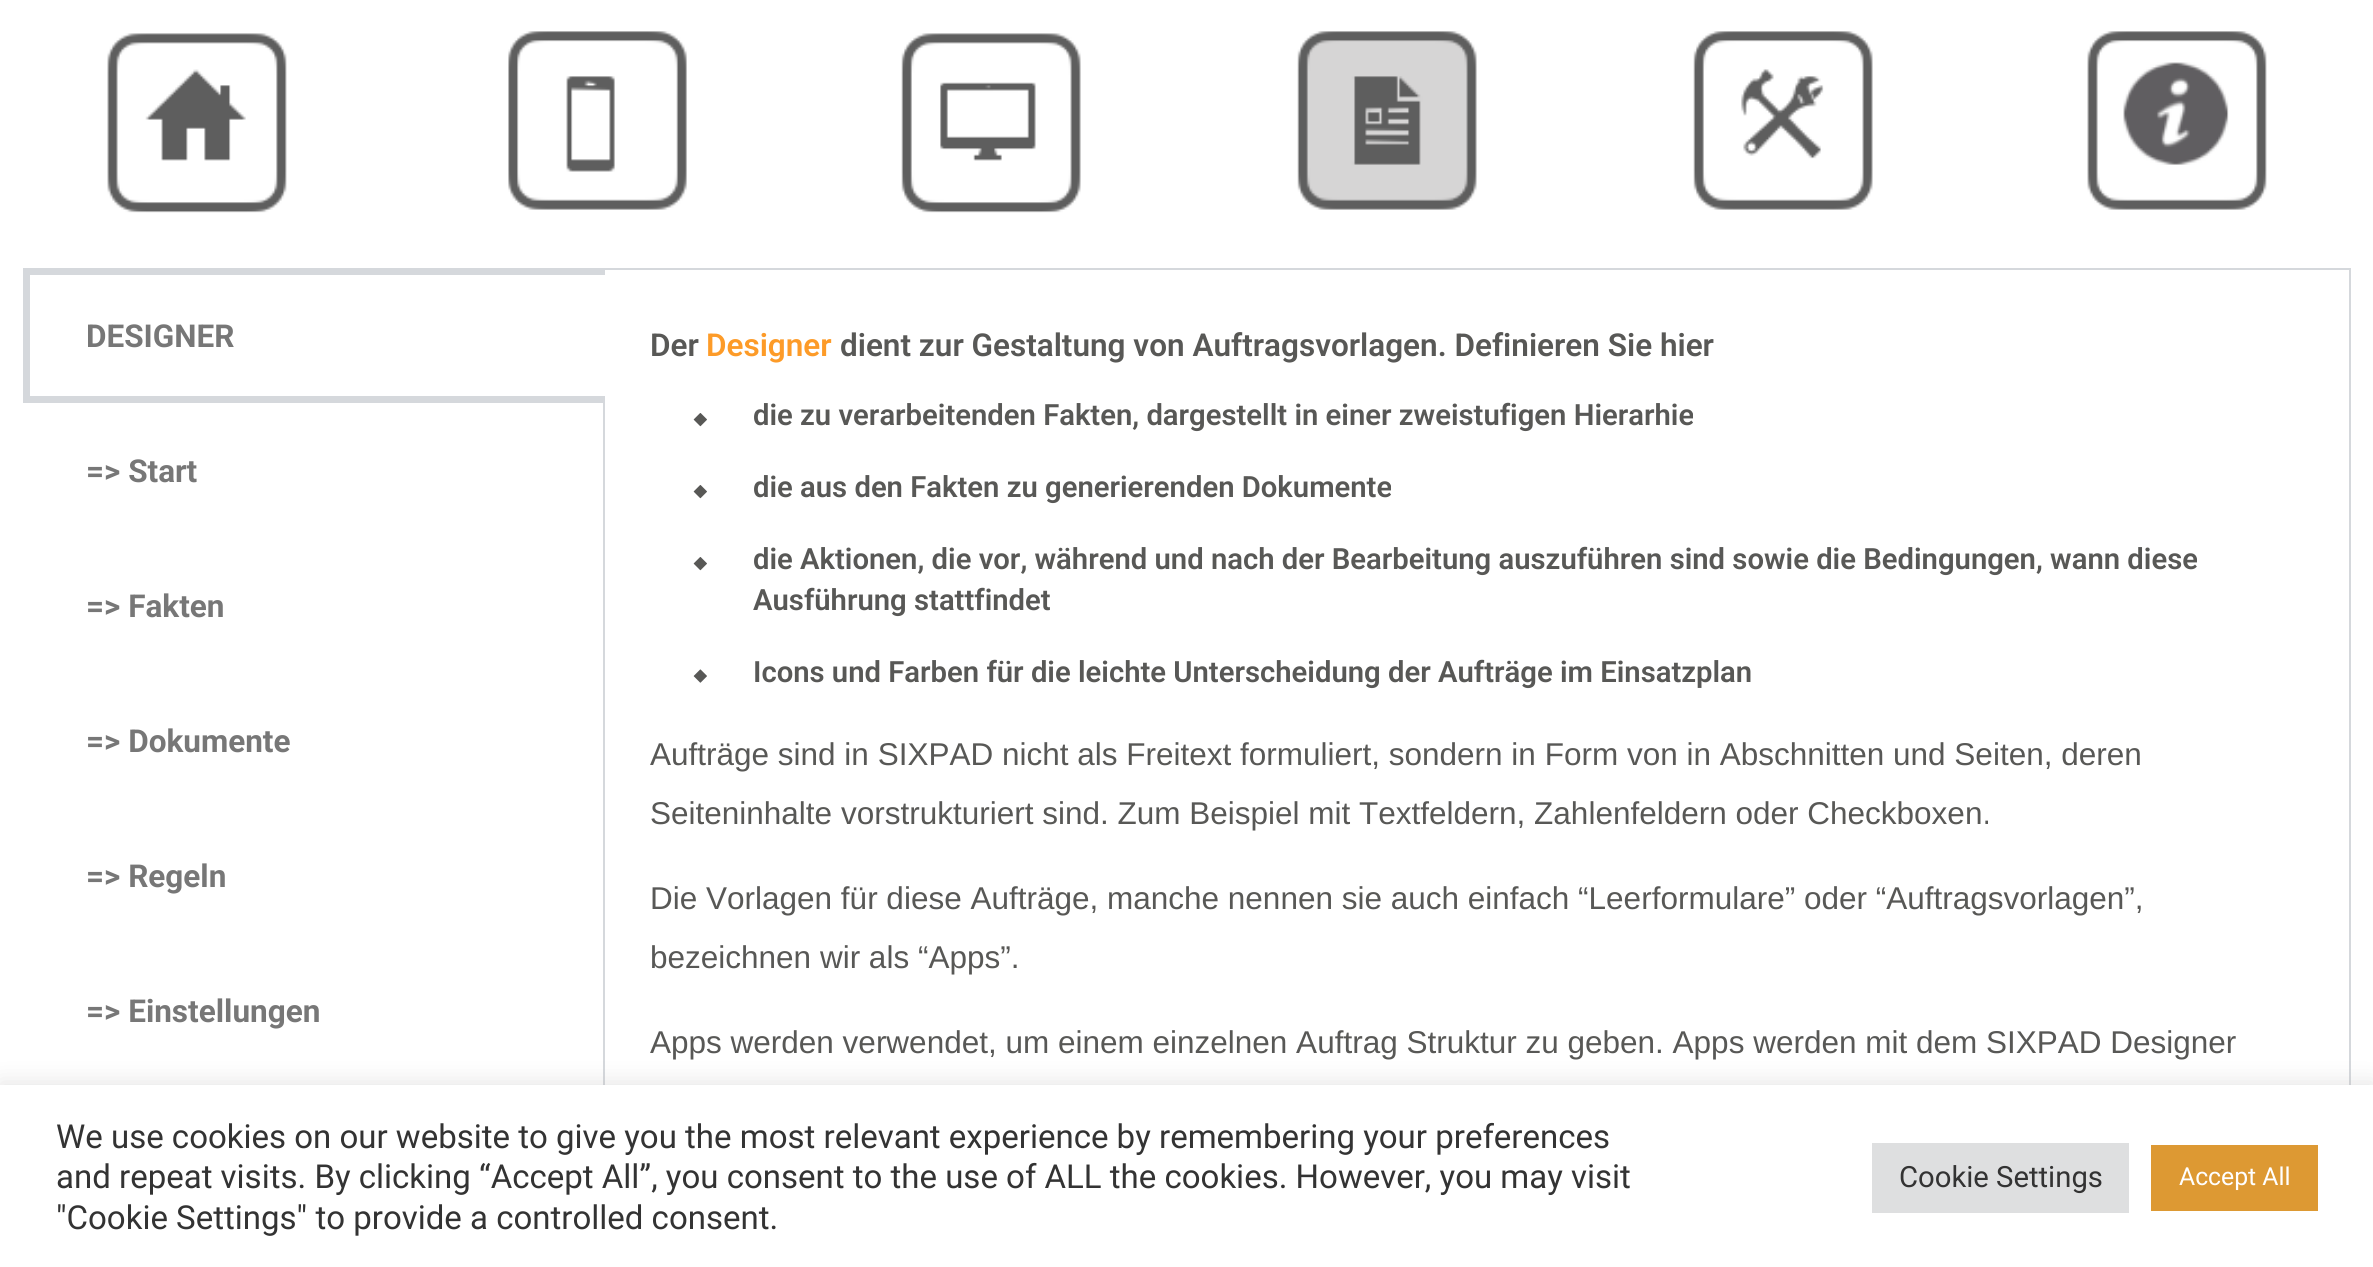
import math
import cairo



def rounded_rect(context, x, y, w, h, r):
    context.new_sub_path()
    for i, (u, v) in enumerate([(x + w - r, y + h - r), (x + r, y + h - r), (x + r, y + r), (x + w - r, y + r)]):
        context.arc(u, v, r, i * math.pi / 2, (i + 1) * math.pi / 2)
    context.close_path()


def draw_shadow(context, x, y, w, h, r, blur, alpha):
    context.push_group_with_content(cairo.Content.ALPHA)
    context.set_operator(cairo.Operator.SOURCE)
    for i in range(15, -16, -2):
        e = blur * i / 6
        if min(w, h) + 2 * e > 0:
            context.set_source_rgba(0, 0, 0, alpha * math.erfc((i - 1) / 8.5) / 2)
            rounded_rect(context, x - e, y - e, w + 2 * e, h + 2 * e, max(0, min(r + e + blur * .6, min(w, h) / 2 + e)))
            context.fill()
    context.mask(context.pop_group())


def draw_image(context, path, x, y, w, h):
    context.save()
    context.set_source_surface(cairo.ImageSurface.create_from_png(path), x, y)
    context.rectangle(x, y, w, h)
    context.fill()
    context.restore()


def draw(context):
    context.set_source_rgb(1, 1, 1)
    context.paint()
    draw_image(context, "images/1.png", 107, 33, 180, 180)
    draw_image(context, "images/2.png", 508, 31, 179, 179)
    draw_image(context, "images/3.png", 901, 33, 180, 180)
    draw_image(context, "images/4.png", 1297, 31, 180, 179)
    draw_image(context, "images/5.png", 1693, 31, 180, 179)
    draw_image(context, "images/6.png", 2087, 31, 180, 179)
    context.set_source_rgb(213 / 255, 216 / 255, 220 / 255)
    context.rectangle(23, 268, 582, 7)
    context.fill()
    context.rectangle(23, 396, 582, 7)
    context.fill()
    context.rectangle(23, 268, 7, 135)
    context.fill()
    context.rectangle(603, 396, 2, 689)
    context.fill()
    context.rectangle(605, 268, 1746, 2)
    context.fill()
    context.rectangle(2349, 268, 2, 817)
    context.fill()
    draw_image(context, "images/7.png", 693, 413, 14, 14)
    draw_image(context, "images/7.png", 693, 485, 14, 14)
    draw_image(context, "images/7.png", 693, 557, 14, 14)
    draw_image(context, "images/8.png", 693, 669, 14, 14)
    context.set_source_rgb(172 / 255, 171 / 255, 171 / 255)
    draw_shadow(context, 0, 1082, 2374, 185, 0, 11, 0.3)
    context.set_source_rgb(1, 1, 1)
    context.rectangle(0, 1085, 2373, 182)
    context.fill()
    context.set_source_rgb(222 / 255, 223 / 255, 224 / 255)
    context.rectangle(1872, 1143, 257, 70)
    context.fill()
    context.set_source_rgb(221 / 255, 153 / 255, 51 / 255)
    context.rectangle(2151, 1145, 167, 66)
    context.fill()
    context.select_font_face("Roboto", cairo.FontSlant.NORMAL, cairo.FontWeight.BOLD)
    context.set_font_size(31.5)
    context.set_source_rgb(119 / 255, 119 / 255, 119 / 255)
    context.move_to(86, 347)
    context.show_text("DESIGNER")
    context.move_to(86, 482)
    context.show_text("=> Start")
    context.move_to(86, 617)
    context.show_text("=> Fakten")
    context.move_to(86, 752)
    context.show_text("=> Dokumente")
    context.move_to(86, 887)
    context.show_text("=> Regeln")
    context.move_to(86, 1022)
    context.show_text("=> Einstellungen")
    context.select_font_face("Roboto SemiBold")
    context.set_source_rgb(88 / 255, 88 / 255, 86 / 255)
    context.move_to(650, 356)
    context.show_text("Der")
    context.set_source_rgb(253 / 255, 155 / 255, 40 / 255)
    context.move_to(706, 356)
    context.show_text("Designer")
    context.set_source_rgb(88 / 255, 88 / 255, 86 / 255)
    context.move_to(840, 356)
    context.show_text("dient zur Gestaltung von Auftragsvorlagen. Definieren Sie hier")
    context.set_font_size(29.25)
    context.move_to(753, 425)
    context.show_text("die zu verarbeitenden Fakten, dargestellt in einer zweistufigen Hierarhie")
    context.move_to(753, 497)
    context.show_text("die aus den Fakten zu generierenden Dokumente")
    context.move_to(753, 569)
    context.show_text("die Aktionen, die vor, während und nach der Bearbeitung auszuführen sind sowie die Bedingungen, wann diese")
    context.move_to(753, 610)
    context.show_text("Ausführung stattfindet")
    context.move_to(753, 682)
    context.show_text("Icons und Farben für die leichte Unterscheidung der Aufträge im Einsatzplan")
    context.select_font_face("Liberation Sans")
    context.set_font_size(31.5)
    context.move_to(650, 765)
    context.show_text("Aufträge sind in SIXPAD nicht als Freitext formuliert, sondern in Form von in Abschnitten und Seiten, deren")
    context.move_to(650, 824)
    context.show_text("Seiteninhalte vorstrukturiert sind. Zum Beispiel mit Textfeldern, Zahlenfeldern oder Checkboxen.")
    context.move_to(650, 909)
    context.show_text("Die Vorlagen für diese Aufträge, manche nennen sie auch einfach “Leerformulare” oder “Auftragsvorlagen”,")
    context.move_to(650, 968)
    context.show_text("bezeichnen wir als “Apps”.")
    context.move_to(650, 1053)
    context.show_text("Apps werden verwendet, um einem einzelnen Auftrag Struktur zu geben. Apps werden mit dem SIXPAD Designer")
    context.select_font_face("Roboto")
    context.set_font_size(33)
    context.set_source_rgb(51 / 255, 51 / 255, 51 / 255)
    context.move_to(56, 1148)
    context.show_text("We use cookies on our website to give you the most relevant experience by remembering your preferences")
    context.move_to(56, 1188)
    context.show_text("and repeat visits. By clicking “Accept All”, you consent to the use of ALL the cookies. However, you may visit")
    context.move_to(56, 1229)
    context.show_text("\"Cookie Settings\" to provide a controlled consent.")
    context.set_font_size(29.25)
    context.move_to(1899, 1187)
    context.show_text("Cookie Settings")
    context.set_font_size(24.75)
    context.set_source_rgb(1, 1, 1)
    context.move_to(2179, 1185)
    context.show_text("Accept All")


surface = cairo.ImageSurface(cairo.Format.RGB24, 2373, 1267)
context = cairo.Context(surface)
options = cairo.FontOptions()
options.set_hint_metrics(cairo.HintMetrics.OFF)
options.set_hint_style(cairo.HintStyle.NONE)
context.set_font_options(options)
context.set_miter_limit(4)
draw(context)
surface.write_to_png("out.png")
